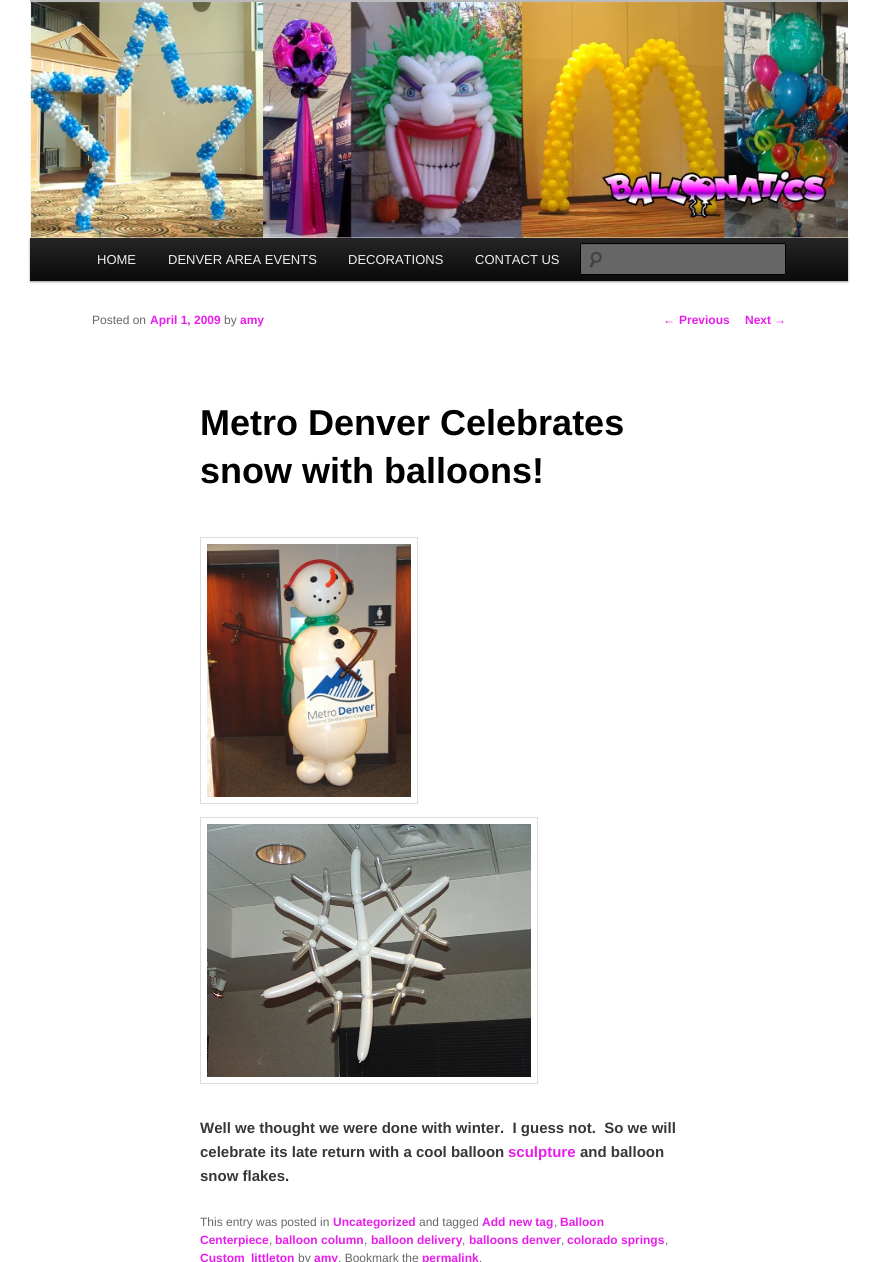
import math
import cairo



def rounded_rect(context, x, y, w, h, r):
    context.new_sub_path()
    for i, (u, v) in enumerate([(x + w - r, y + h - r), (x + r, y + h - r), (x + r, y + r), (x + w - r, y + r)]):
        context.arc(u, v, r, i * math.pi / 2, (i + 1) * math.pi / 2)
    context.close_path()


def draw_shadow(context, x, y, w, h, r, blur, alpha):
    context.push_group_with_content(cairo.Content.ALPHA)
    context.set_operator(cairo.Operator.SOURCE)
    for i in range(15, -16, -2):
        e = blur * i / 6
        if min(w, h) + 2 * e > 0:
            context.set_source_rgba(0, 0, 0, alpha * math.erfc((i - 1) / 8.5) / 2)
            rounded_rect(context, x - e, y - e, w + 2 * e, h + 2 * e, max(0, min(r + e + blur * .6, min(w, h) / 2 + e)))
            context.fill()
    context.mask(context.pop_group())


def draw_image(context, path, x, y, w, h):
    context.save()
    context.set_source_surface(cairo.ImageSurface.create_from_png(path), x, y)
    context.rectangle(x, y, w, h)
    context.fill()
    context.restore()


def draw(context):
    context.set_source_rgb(1, 1, 1)
    context.paint()
    context.set_source_rgb(187 / 255, 187 / 255, 187 / 255)
    context.rectangle(30, 0, 818, 2)
    context.fill()
    context.set_source_rgb(0, 0, 0)
    draw_shadow(context, 30, 239, 818, 43, 0, 1, 0.4)
    draw_image(context, "images/1.png", 30, 2, 818, 236)
    gradient = cairo.LinearGradient(439, 238, 439, 281)
    gradient.add_color_stop_rgba(0, 37 / 255, 37 / 255, 37 / 255, 1)
    gradient.add_color_stop_rgba(1, 10 / 255, 10 / 255, 10 / 255, 1)
    context.set_source(gradient)
    context.rectangle(30, 238, 818, 43)
    context.fill()
    context.set_source_rgb(102 / 255, 102 / 255, 102 / 255)
    rounded_rect(context, 580, 243, 206, 32, 2)
    context.fill()
    draw_image(context, "images/2.png", 589, 251, 13, 17)
    context.set_source_rgb(92 / 255, 92 / 255, 92 / 255)
    context.new_path()
    context.move_to(582, 245)
    context.line_to(785, 245)
    context.line_to(785, 246)
    context.line_to(785, 244)
    context.line_to(784, 244)
    context.line_to(582, 244)
    context.curve_to(581, 244, 581, 245, 581, 246)
    context.curve_to(581, 245, 581, 245, 582, 245)
    context.close_path()
    context.fill()
    rounded_rect(context, 580.5, 243.5, 205, 31, 1.5)
    context.set_source_rgb(0, 0, 0)
    context.set_line_width(1)
    context.stroke()
    context.rectangle(200.5, 537.5, 217, 266)
    context.set_source_rgb(221 / 255, 221 / 255, 221 / 255)
    context.stroke()
    draw_image(context, "images/3.png", 207, 544, 204, 253)
    context.rectangle(200.5, 817.5, 337, 266)
    context.stroke()
    draw_image(context, "images/4.png", 207, 824, 324, 253)
    context.select_font_face("Liberation Sans")
    context.set_font_size(13)
    context.set_source_rgb(238 / 255, 238 / 255, 238 / 255)
    context.move_to(97, 264)
    context.show_text("HOME")
    context.move_to(168, 264)
    context.show_text("DENVER AREA EVENTS")
    context.move_to(348, 264)
    context.show_text("DECORATIONS")
    context.move_to(475, 264)
    context.show_text("CONTACT US")
    context.set_font_size(12)
    context.set_source_rgb(102 / 255, 102 / 255, 102 / 255)
    context.move_to(92, 324)
    context.show_text("Posted on")
    context.select_font_face("Liberation Sans", cairo.FontSlant.NORMAL, cairo.FontWeight.BOLD)
    context.set_source_rgb(233 / 255, 28 / 255, 237 / 255)
    context.move_to(150, 324)
    context.show_text("April 1, 2009")
    context.select_font_face("Liberation Sans")
    context.set_source_rgb(102 / 255, 102 / 255, 102 / 255)
    context.move_to(224, 324)
    context.show_text("by")
    context.select_font_face("Liberation Sans", cairo.FontSlant.NORMAL, cairo.FontWeight.BOLD)
    context.set_source_rgb(233 / 255, 28 / 255, 237 / 255)
    context.move_to(240, 324)
    context.show_text("amy")
    context.set_font_size(36)
    context.set_source_rgb(0, 0, 0)
    context.move_to(200, 435)
    context.show_text("Metro Denver Celebrates")
    context.move_to(200, 483)
    context.show_text("snow with balloons!")
    context.set_font_size(15)
    context.set_source_rgb(55 / 255, 55 / 255, 55 / 255)
    context.move_to(200, 1133)
    context.show_text("Well we thought we were done with winter.  I guess not.  So we will")
    context.move_to(200, 1157)
    context.show_text("celebrate its late return with a cool balloon")
    context.set_source_rgb(233 / 255, 28 / 255, 237 / 255)
    context.move_to(508, 1157)
    context.show_text("sculpture")
    context.set_source_rgb(55 / 255, 55 / 255, 55 / 255)
    context.move_to(580, 1157)
    context.show_text("and balloon")
    context.move_to(200, 1181)
    context.show_text("snow flakes.")
    context.select_font_face("Liberation Sans")
    context.set_font_size(12)
    context.set_source_rgb(102 / 255, 102 / 255, 102 / 255)
    context.move_to(200, 1226)
    context.show_text("This entry was posted in")
    context.select_font_face("Liberation Sans", cairo.FontSlant.NORMAL, cairo.FontWeight.BOLD)
    context.set_source_rgb(233 / 255, 28 / 255, 237 / 255)
    context.move_to(333, 1226)
    context.show_text("Uncategorized")
    context.select_font_face("Liberation Sans")
    context.set_source_rgb(102 / 255, 102 / 255, 102 / 255)
    context.move_to(419, 1226)
    context.show_text("and tagged")
    context.select_font_face("Liberation Sans", cairo.FontSlant.NORMAL, cairo.FontWeight.BOLD)
    context.set_source_rgb(233 / 255, 28 / 255, 237 / 255)
    context.move_to(482, 1226)
    context.show_text("Add new tag")
    context.select_font_face("Liberation Sans")
    context.set_source_rgb(102 / 255, 102 / 255, 102 / 255)
    context.move_to(554, 1226)
    context.show_text(",")
    context.select_font_face("Liberation Sans", cairo.FontSlant.NORMAL, cairo.FontWeight.BOLD)
    context.set_source_rgb(233 / 255, 28 / 255, 237 / 255)
    context.move_to(560, 1226)
    context.show_text("Balloon")
    context.move_to(200, 1244)
    context.show_text("Centerpiece")
    context.select_font_face("Liberation Sans")
    context.set_source_rgb(102 / 255, 102 / 255, 102 / 255)
    context.move_to(269, 1244)
    context.show_text(",")
    context.select_font_face("Liberation Sans", cairo.FontSlant.NORMAL, cairo.FontWeight.BOLD)
    context.set_source_rgb(233 / 255, 28 / 255, 237 / 255)
    context.move_to(275, 1244)
    context.show_text("balloon column")
    context.select_font_face("Liberation Sans")
    context.set_source_rgb(102 / 255, 102 / 255, 102 / 255)
    context.move_to(364, 1244)
    context.show_text(",")
    context.select_font_face("Liberation Sans", cairo.FontSlant.NORMAL, cairo.FontWeight.BOLD)
    context.set_source_rgb(233 / 255, 28 / 255, 237 / 255)
    context.move_to(371, 1244)
    context.show_text("balloon delivery")
    context.select_font_face("Liberation Sans")
    context.set_source_rgb(102 / 255, 102 / 255, 102 / 255)
    context.move_to(462, 1244)
    context.show_text(",")
    context.select_font_face("Liberation Sans", cairo.FontSlant.NORMAL, cairo.FontWeight.BOLD)
    context.set_source_rgb(233 / 255, 28 / 255, 237 / 255)
    context.move_to(469, 1244)
    context.show_text("balloons denver")
    context.select_font_face("Liberation Sans")
    context.set_source_rgb(102 / 255, 102 / 255, 102 / 255)
    context.move_to(561, 1244)
    context.show_text(",")
    context.select_font_face("Liberation Sans", cairo.FontSlant.NORMAL, cairo.FontWeight.BOLD)
    context.set_source_rgb(233 / 255, 28 / 255, 237 / 255)
    context.move_to(567, 1244)
    context.show_text("colorado springs")
    context.select_font_face("Liberation Sans")
    context.set_source_rgb(102 / 255, 102 / 255, 102 / 255)
    context.move_to(665, 1244)
    context.show_text(",")
    context.select_font_face("Liberation Sans", cairo.FontSlant.NORMAL, cairo.FontWeight.BOLD)
    context.set_source_rgb(233 / 255, 28 / 255, 237 / 255)
    context.move_to(200, 1262)
    context.show_text("Custom")
    context.move_to(251, 1262)
    context.show_text("littleton")
    context.select_font_face("Liberation Sans")
    context.set_source_rgb(102 / 255, 102 / 255, 102 / 255)
    context.move_to(298, 1262)
    context.show_text("by")
    context.select_font_face("Liberation Sans", cairo.FontSlant.NORMAL, cairo.FontWeight.BOLD)
    context.set_source_rgb(233 / 255, 28 / 255, 237 / 255)
    context.move_to(314, 1262)
    context.show_text("amy")
    context.select_font_face("Liberation Sans")
    context.set_source_rgb(102 / 255, 102 / 255, 102 / 255)
    context.move_to(338, 1262)
    context.show_text(". Bookmark the")
    context.select_font_face("Liberation Sans", cairo.FontSlant.NORMAL, cairo.FontWeight.BOLD)
    context.set_source_rgb(233 / 255, 28 / 255, 237 / 255)
    context.move_to(422, 1262)
    context.show_text("permalink")
    context.select_font_face("Liberation Sans")
    context.set_source_rgb(102 / 255, 102 / 255, 102 / 255)
    context.move_to(479, 1262)
    context.show_text(".")
    context.set_source_rgb(233 / 255, 28 / 255, 237 / 255)
    context.move_to(663, 324)
    context.show_text("←")
    context.select_font_face("Liberation Sans", cairo.FontSlant.NORMAL, cairo.FontWeight.BOLD)
    context.move_to(679, 324)
    context.show_text("Previous")
    context.move_to(745, 324)
    context.show_text("Next")
    context.select_font_face("Liberation Sans")
    context.move_to(774, 324)
    context.show_text("→")


surface = cairo.ImageSurface(cairo.Format.RGB24, 878, 1262)
context = cairo.Context(surface)
options = cairo.FontOptions()
options.set_hint_metrics(cairo.HintMetrics.OFF)
options.set_hint_style(cairo.HintStyle.NONE)
context.set_font_options(options)
context.set_miter_limit(4)
draw(context)
surface.write_to_png("out.png")
